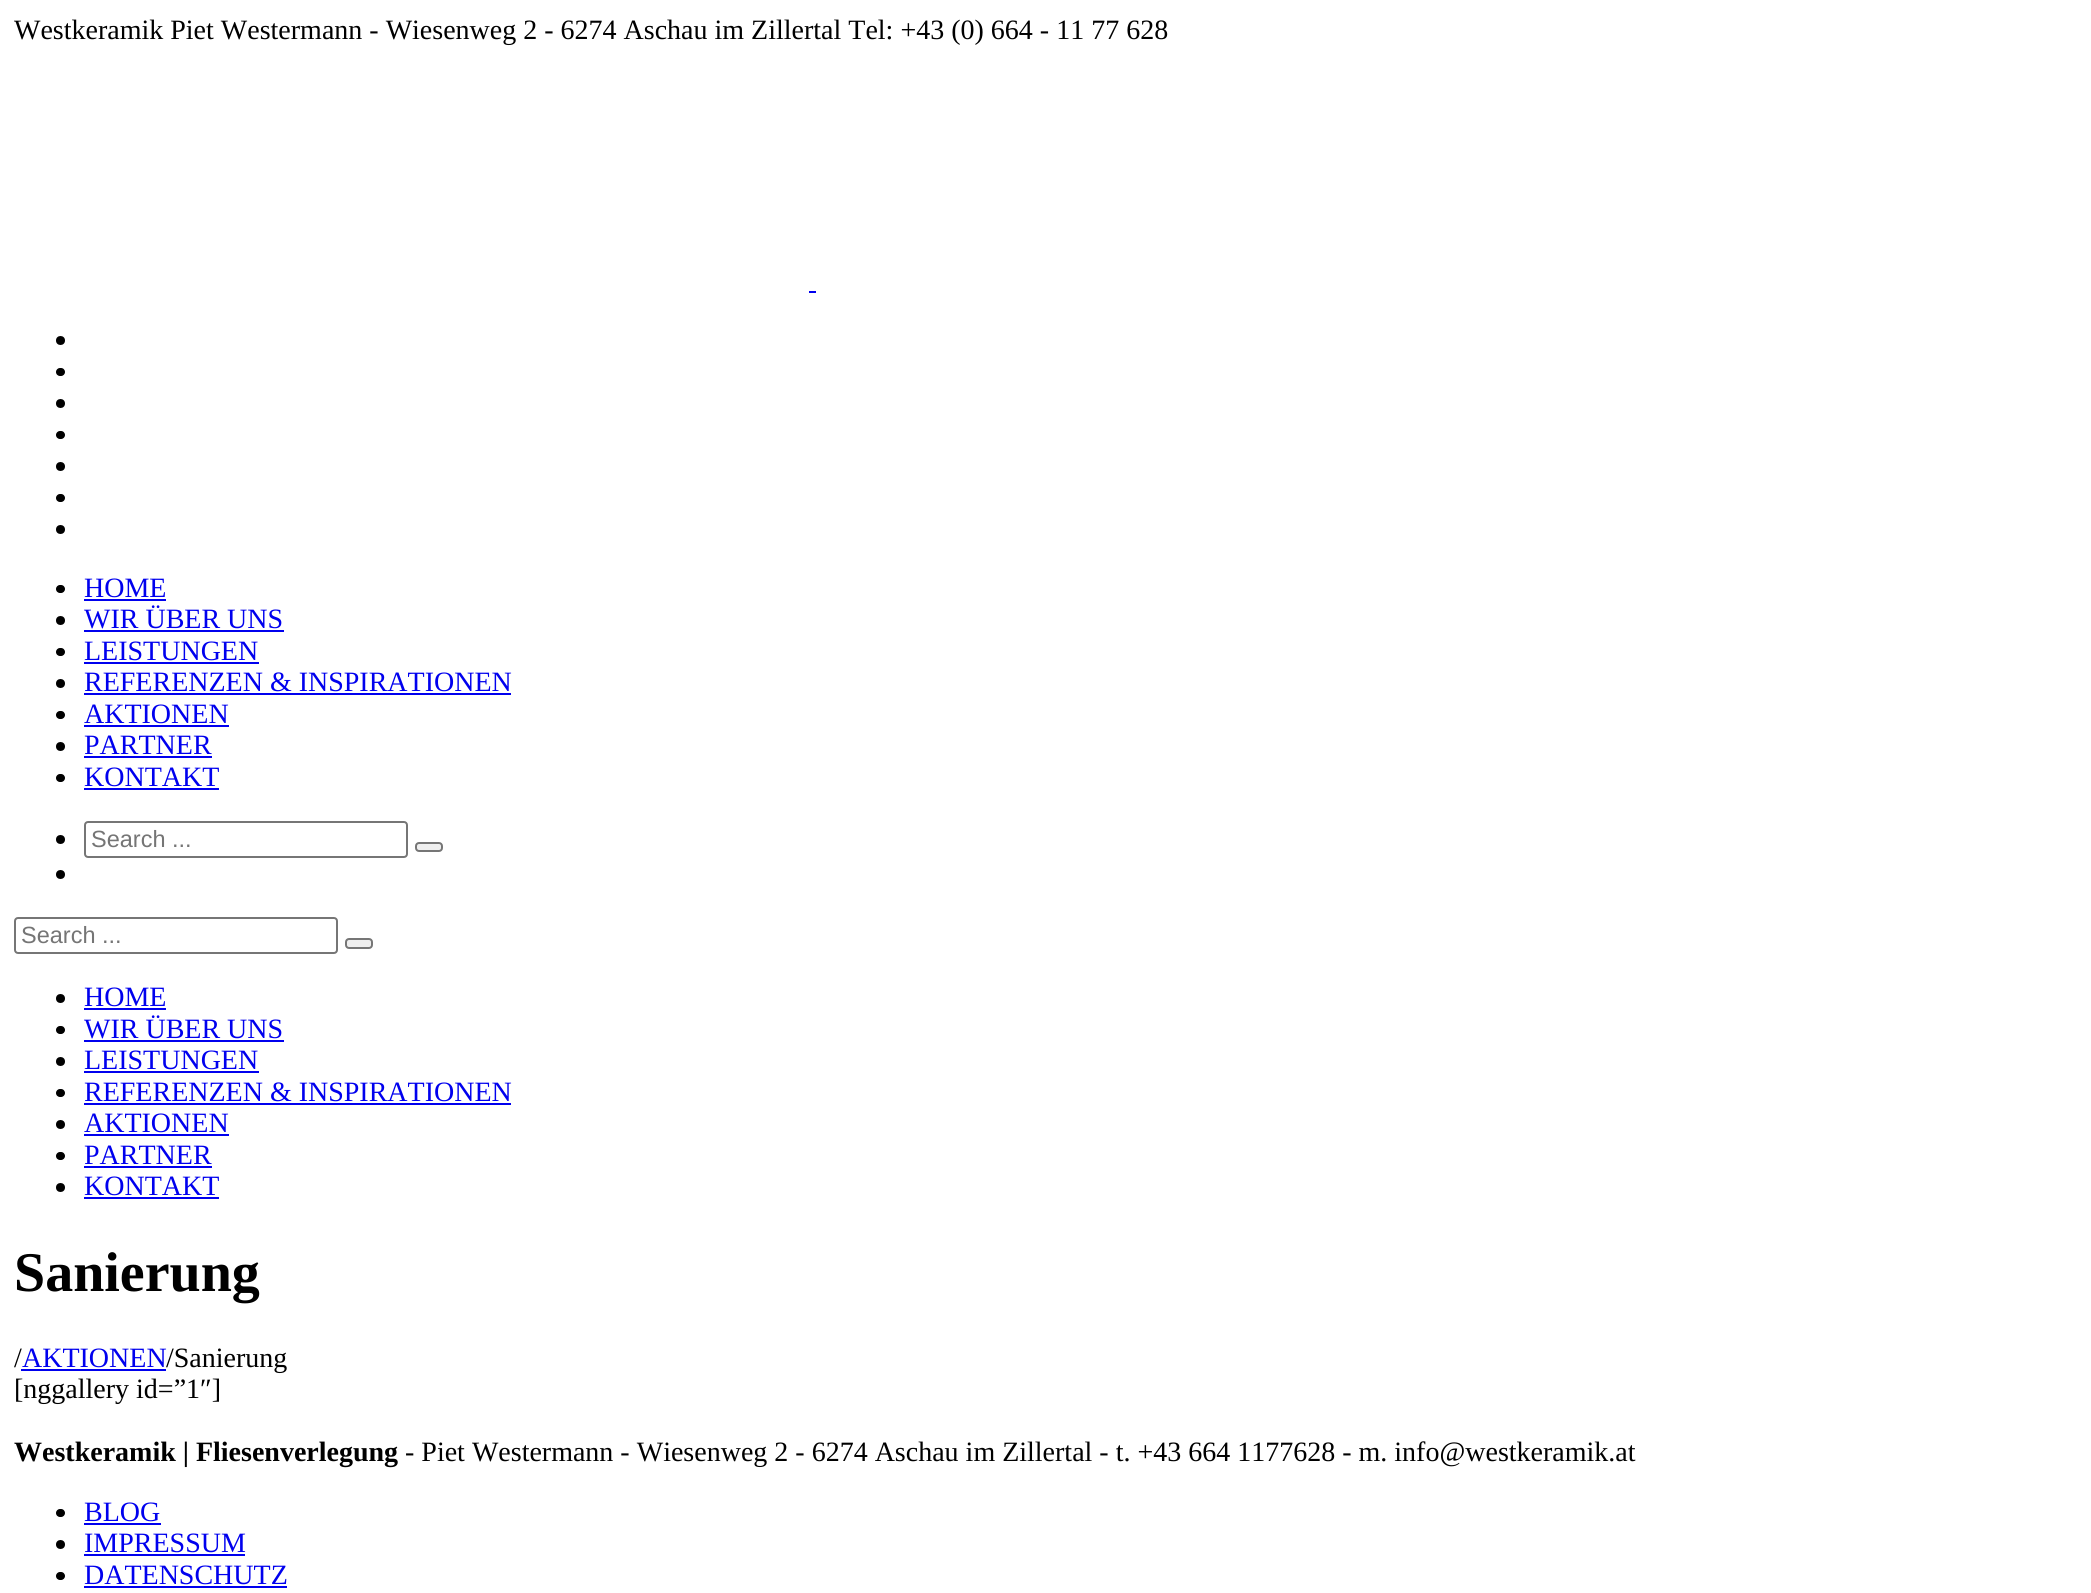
import math
import cairo



def rounded_rect(context, x, y, w, h, r):
    context.new_sub_path()
    for i, (u, v) in enumerate([(x + w - r, y + h - r), (x + r, y + h - r), (x + r, y + r), (x + w - r, y + r)]):
        context.arc(u, v, r, i * math.pi / 2, (i + 1) * math.pi / 2)
    context.close_path()


def draw(context):
    context.set_source_rgb(1, 1, 1)
    context.paint()
    context.set_source_rgb(0, 0, 238 / 255)
    context.rectangle(809, 291, 7, 2)
    context.fill()
    context.set_source_rgb(0, 0, 0)
    context.arc(60.5, 340.5, 4.5, 0, 2 * math.pi)
    context.fill()
    rounded_rect(context, 56, 368, 9, 8, 4)
    context.fill()
    context.arc(60.5, 403.5, 4.5, 0, 2 * math.pi)
    context.fill()
    rounded_rect(context, 56, 431, 9, 8, 4)
    context.fill()
    context.arc(60.5, 466.5, 4.5, 0, 2 * math.pi)
    context.fill()
    rounded_rect(context, 56, 494, 9, 8, 4)
    context.fill()
    context.arc(60.5, 529.5, 4.5, 0, 2 * math.pi)
    context.fill()
    rounded_rect(context, 56, 585, 9, 8, 4)
    context.fill()
    context.set_source_rgb(0, 0, 238 / 255)
    context.rectangle(84, 599, 82, 2)
    context.fill()
    context.set_source_rgb(0, 0, 0)
    context.arc(60.5, 620.5, 4.5, 0, 2 * math.pi)
    context.fill()
    context.set_source_rgb(0, 0, 238 / 255)
    context.rectangle(84, 630, 200, 2)
    context.fill()
    context.set_source_rgb(0, 0, 0)
    rounded_rect(context, 56, 648, 9, 8, 4)
    context.fill()
    context.set_source_rgb(0, 0, 238 / 255)
    context.rectangle(84, 662, 175, 2)
    context.fill()
    context.set_source_rgb(0, 0, 0)
    context.arc(60.5, 683.5, 4.5, 0, 2 * math.pi)
    context.fill()
    context.set_source_rgb(0, 0, 238 / 255)
    context.rectangle(84, 693, 427, 2)
    context.fill()
    context.set_source_rgb(0, 0, 0)
    rounded_rect(context, 56, 711, 9, 8, 4)
    context.fill()
    context.set_source_rgb(0, 0, 238 / 255)
    context.rectangle(84, 725, 145, 2)
    context.fill()
    context.set_source_rgb(0, 0, 0)
    context.arc(60.5, 746.5, 4.5, 0, 2 * math.pi)
    context.fill()
    context.set_source_rgb(0, 0, 238 / 255)
    context.rectangle(84, 756, 128, 2)
    context.fill()
    context.set_source_rgb(0, 0, 0)
    rounded_rect(context, 56, 774, 9, 8, 4)
    context.fill()
    context.set_source_rgb(0, 0, 238 / 255)
    context.rectangle(84, 788, 135, 2)
    context.fill()
    context.set_source_rgb(0, 0, 0)
    context.arc(60.5, 839.5, 4.5, 0, 2 * math.pi)
    context.fill()
    rounded_rect(context, 85, 822, 322, 35, 3)
    context.set_source_rgb(118 / 255, 118 / 255, 118 / 255)
    context.stroke()
    context.set_source_rgb(239 / 255, 239 / 255, 239 / 255)
    rounded_rect(context, 416, 843, 26, 8, 3)
    context.fill_preserve()
    context.set_source_rgb(118 / 255, 118 / 255, 118 / 255)
    context.stroke()
    context.set_source_rgb(0, 0, 0)
    context.arc(60.5, 874.5, 4.5, 0, 2 * math.pi)
    context.fill()
    rounded_rect(context, 15, 918, 322, 35, 3)
    context.set_source_rgb(118 / 255, 118 / 255, 118 / 255)
    context.stroke()
    context.set_source_rgb(239 / 255, 239 / 255, 239 / 255)
    rounded_rect(context, 346, 939, 26, 9, 3)
    context.fill_preserve()
    context.set_source_rgb(118 / 255, 118 / 255, 118 / 255)
    context.stroke()
    context.set_source_rgb(0, 0, 0)
    context.arc(60.5, 998.5, 4.5, 0, 2 * math.pi)
    context.fill()
    context.set_source_rgb(0, 0, 238 / 255)
    context.rectangle(84, 1008, 82, 2)
    context.fill()
    context.set_source_rgb(0, 0, 0)
    rounded_rect(context, 56, 1026, 9, 8, 4)
    context.fill()
    context.set_source_rgb(0, 0, 238 / 255)
    context.rectangle(84, 1040, 200, 2)
    context.fill()
    context.set_source_rgb(0, 0, 0)
    context.arc(60.5, 1061.5, 4.5, 0, 2 * math.pi)
    context.fill()
    context.set_source_rgb(0, 0, 238 / 255)
    context.rectangle(84, 1071, 175, 2)
    context.fill()
    context.set_source_rgb(0, 0, 0)
    rounded_rect(context, 56, 1089, 9, 8, 4)
    context.fill()
    context.set_source_rgb(0, 0, 238 / 255)
    context.rectangle(84, 1103, 427, 2)
    context.fill()
    context.set_source_rgb(0, 0, 0)
    context.arc(60.5, 1124.5, 4.5, 0, 2 * math.pi)
    context.fill()
    context.set_source_rgb(0, 0, 238 / 255)
    context.rectangle(84, 1134, 145, 2)
    context.fill()
    context.set_source_rgb(0, 0, 0)
    rounded_rect(context, 56, 1152, 9, 8, 4)
    context.fill()
    context.set_source_rgb(0, 0, 238 / 255)
    context.rectangle(84, 1166, 128, 2)
    context.fill()
    context.set_source_rgb(0, 0, 0)
    context.arc(60.5, 1187.5, 4.5, 0, 2 * math.pi)
    context.fill()
    context.set_source_rgb(0, 0, 238 / 255)
    context.rectangle(84, 1197, 135, 2)
    context.fill()
    context.rectangle(21, 1369, 145, 2)
    context.fill()
    context.set_source_rgb(0, 0, 0)
    rounded_rect(context, 56, 1509, 9, 8, 4)
    context.fill()
    context.set_source_rgb(0, 0, 238 / 255)
    context.rectangle(84, 1523, 77, 2)
    context.fill()
    context.set_source_rgb(0, 0, 0)
    context.arc(60.5, 1544.5, 4.5, 0, 2 * math.pi)
    context.fill()
    context.set_source_rgb(0, 0, 238 / 255)
    context.rectangle(84, 1554, 161, 2)
    context.fill()
    context.set_source_rgb(0, 0, 0)
    rounded_rect(context, 56, 1572, 9, 8, 4)
    context.fill()
    context.set_source_rgb(0, 0, 238 / 255)
    context.rectangle(84, 1586, 203, 2)
    context.fill()
    context.select_font_face("Liberation Serif")
    context.set_font_size(28)
    context.set_source_rgb(0, 0, 0)
    context.move_to(14, 39)
    context.show_text("Westkeramik Piet Westermann - Wiesenweg 2 - 6274 Aschau im Zillertal Tel: +43 (0) 664 - 11 77 628")
    context.set_source_rgb(0, 0, 238 / 255)
    context.move_to(84, 597)
    context.show_text("HOME")
    context.move_to(84, 628)
    context.show_text("WIR ÜBER UNS")
    context.move_to(84, 660)
    context.show_text("LEISTUNGEN")
    context.move_to(84, 691)
    context.show_text("REFERENZEN & INSPIRATIONEN")
    context.move_to(84, 723)
    context.show_text("AKTIONEN")
    context.move_to(84, 754)
    context.show_text("PARTNER")
    context.move_to(84, 786)
    context.show_text("KONTAKT")
    context.select_font_face("Liberation Sans")
    context.set_font_size(23.5)
    context.set_source_rgb(117 / 255, 117 / 255, 117 / 255)
    context.move_to(91, 847)
    context.show_text("Search ...")
    context.move_to(21, 943)
    context.show_text("Search ...")
    context.select_font_face("Liberation Serif")
    context.set_font_size(28)
    context.set_source_rgb(0, 0, 238 / 255)
    context.move_to(84, 1006)
    context.show_text("HOME")
    context.move_to(84, 1038)
    context.show_text("WIR ÜBER UNS")
    context.move_to(84, 1069)
    context.show_text("LEISTUNGEN")
    context.move_to(84, 1101)
    context.show_text("REFERENZEN & INSPIRATIONEN")
    context.move_to(84, 1132)
    context.show_text("AKTIONEN")
    context.move_to(84, 1164)
    context.show_text("PARTNER")
    context.move_to(84, 1195)
    context.show_text("KONTAKT")
    context.select_font_face("Liberation Serif", cairo.FontSlant.NORMAL, cairo.FontWeight.BOLD)
    context.set_font_size(56)
    context.set_source_rgb(0, 0, 0)
    context.move_to(14, 1291)
    context.show_text("Sanierung")
    context.select_font_face("Liberation Serif")
    context.set_font_size(28)
    context.move_to(14, 1367)
    context.show_text("/")
    context.set_source_rgb(0, 0, 238 / 255)
    context.move_to(22, 1367)
    context.show_text("AKTIONEN")
    context.set_source_rgb(0, 0, 0)
    context.move_to(166, 1367)
    context.show_text("/Sanierung")
    context.move_to(14, 1398)
    context.show_text("[nggallery id=”1″]")
    context.select_font_face("Liberation Serif", cairo.FontSlant.NORMAL, cairo.FontWeight.BOLD)
    context.move_to(14, 1461)
    context.show_text("Westkeramik | Fliesenverlegung")
    context.select_font_face("Liberation Serif")
    context.move_to(405, 1461)
    context.show_text("- Piet Westermann - Wiesenweg 2 - 6274 Aschau im Zillertal - t. +43 664 1177628 - m. info@westkeramik.at")
    context.set_source_rgb(0, 0, 238 / 255)
    context.move_to(84, 1521)
    context.show_text("BLOG")
    context.move_to(84, 1552)
    context.show_text("IMPRESSUM")
    context.move_to(84, 1584)
    context.show_text("DATENSCHUTZ")


surface = cairo.ImageSurface(cairo.Format.RGB24, 2091, 1593)
context = cairo.Context(surface)
options = cairo.FontOptions()
options.set_hint_metrics(cairo.HintMetrics.OFF)
options.set_hint_style(cairo.HintStyle.NONE)
context.set_font_options(options)
context.set_miter_limit(4)
draw(context)
surface.write_to_png("out.png")
